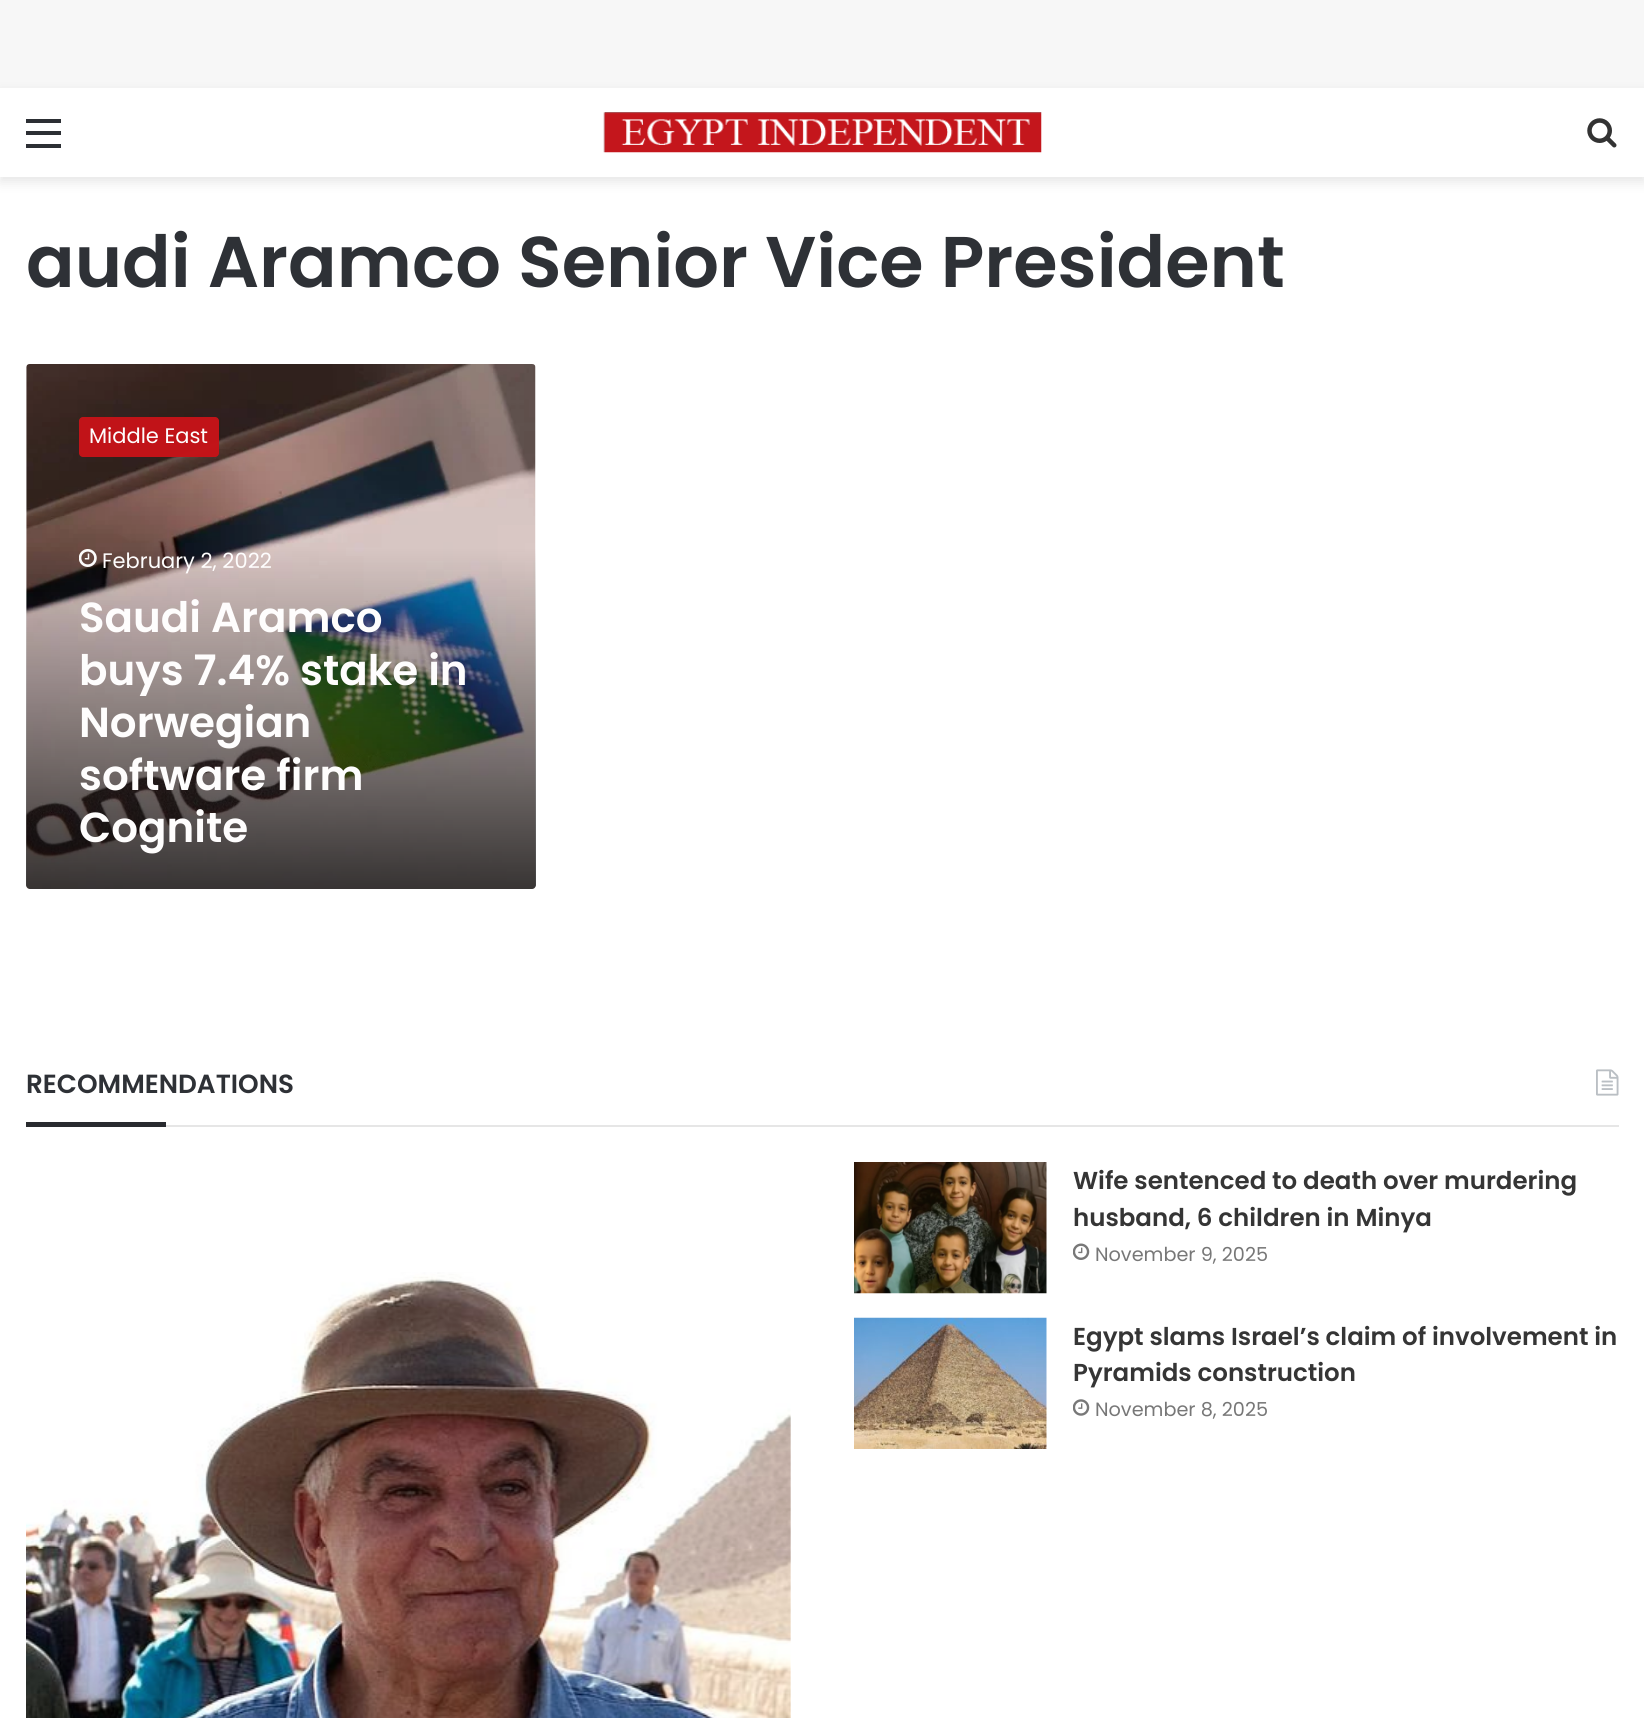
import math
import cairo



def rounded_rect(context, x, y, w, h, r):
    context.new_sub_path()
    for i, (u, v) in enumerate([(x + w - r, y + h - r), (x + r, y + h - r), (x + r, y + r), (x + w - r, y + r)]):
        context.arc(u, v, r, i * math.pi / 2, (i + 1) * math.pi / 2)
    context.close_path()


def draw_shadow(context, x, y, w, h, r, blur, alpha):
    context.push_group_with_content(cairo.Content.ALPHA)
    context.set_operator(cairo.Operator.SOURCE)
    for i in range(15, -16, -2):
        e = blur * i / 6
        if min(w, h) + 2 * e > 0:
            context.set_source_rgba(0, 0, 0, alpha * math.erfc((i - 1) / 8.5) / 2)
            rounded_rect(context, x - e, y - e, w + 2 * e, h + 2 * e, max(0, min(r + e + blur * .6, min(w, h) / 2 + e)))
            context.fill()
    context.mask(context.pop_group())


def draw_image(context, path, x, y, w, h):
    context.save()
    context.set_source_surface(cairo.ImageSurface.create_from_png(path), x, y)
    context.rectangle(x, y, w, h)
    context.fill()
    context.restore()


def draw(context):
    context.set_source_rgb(247 / 255, 247 / 255, 247 / 255)
    context.paint()
    context.set_source_rgb(1, 1, 1)
    context.rectangle(0, 177, 1644, 1541)
    context.fill()
    context.set_source_rgb(0, 0, 0)
    draw_shadow(context, 0, 93, 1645, 89, 0, 6, 0.1)
    context.set_source_rgb(1, 1, 1)
    context.rectangle(0, 88, 1644, 89)
    context.fill()
    context.set_source_rgb(44 / 255, 47 / 255, 52 / 255)
    context.rectangle(26, 131, 35, 4)
    context.fill()
    context.rectangle(26, 119, 35, 4)
    context.fill()
    context.rectangle(26, 144, 35, 4)
    context.fill()
    draw_image(context, "images/1.png", 603, 112, 439, 41)
    draw_image(context, "images/2.png", 1587, 118, 30, 30)
    draw_image(context, "images/3.png", 26, 364, 510, 525)
    context.set_source_rgba(195 / 255, 20 / 255, 25 / 255, 0.99)
    rounded_rect(context, 79, 417, 140, 40, 4)
    context.fill()
    gradient = cairo.LinearGradient(281, 548, 281, 889)
    gradient.add_color_stop_rgba(0, 0, 0, 0, 0)
    gradient.add_color_stop_rgba(1, 0, 0, 0, 0.74)
    context.set_source(gradient)
    context.new_path()
    context.move_to(26, 548)
    context.line_to(536, 548)
    context.line_to(536, 885)
    context.curve_to(536, 887, 534, 889, 532, 889)
    context.line_to(30, 889)
    context.curve_to(28, 889, 26, 887, 26, 885)
    context.close_path()
    context.fill()
    draw_image(context, "images/4.png", 79, 549, 18, 18)
    context.set_source_rgb(230 / 255, 230 / 255, 230 / 255)
    context.rectangle(166, 1125, 1453, 2)
    context.fill()
    draw_image(context, "images/5.png", 1596, 1069, 23, 27)
    context.set_source_rgb(41 / 255, 43 / 255, 47 / 255)
    context.rectangle(26, 1122, 140, 5)
    context.fill()
    draw_image(context, "images/6.png", 854, 1162, 193, 132)
    draw_image(context, "images/7.png", 1073, 1243, 17, 17)
    draw_image(context, "images/8.png", 26, 1272, 765, 446)
    draw_image(context, "images/9.png", 854, 1317, 193, 132)
    draw_image(context, "images/10.png", 1073, 1399, 17, 17)
    context.select_font_face("Poppins SemiBold")
    context.set_font_size(71.75)
    context.set_source_rgb(46 / 255, 49 / 255, 54 / 255)
    context.move_to(26, 287)
    context.show_text("audi Aramco Senior Vice President")
    context.select_font_face("Poppins")
    context.set_font_size(21)
    context.set_source_rgb(254 / 255, 253 / 255, 253 / 255)
    context.move_to(89, 443)
    context.show_text("Middle East")
    context.move_to(102, 568)
    context.show_text("February 2, 2022")
    context.select_font_face("Poppins SemiBold")
    context.set_font_size(42)
    context.move_to(79, 632)
    context.show_text("Saudi Aramco")
    context.move_to(79, 685)
    context.show_text("buys 7.4% stake in")
    context.move_to(79, 737)
    context.show_text("Norwegian")
    context.move_to(79, 790)
    context.show_text("software firm")
    context.move_to(79, 842)
    context.show_text("Cognite")
    context.set_font_size(26.25)
    context.set_source_rgb(46 / 255, 49 / 255, 54 / 255)
    context.move_to(26, 1093)
    context.show_text("RECOMMENDATIONS")
    context.set_font_size(24.5)
    context.set_source_rgb(53 / 255, 53 / 255, 53 / 255)
    context.move_to(1073, 1189)
    context.show_text("Wife sentenced to death over murdering")
    context.move_to(1073, 1226)
    context.show_text("husband, 6 children in Minya")
    context.select_font_face("Poppins")
    context.set_font_size(19.25)
    context.set_source_rgb(119 / 255, 119 / 255, 119 / 255)
    context.move_to(1095, 1261)
    context.show_text("November 9, 2025")
    context.select_font_face("Poppins SemiBold")
    context.set_font_size(24.5)
    context.set_source_rgb(53 / 255, 53 / 255, 53 / 255)
    context.move_to(1073, 1345)
    context.show_text("Egypt slams Israel’s claim of involvement in")
    context.move_to(1073, 1381)
    context.show_text("Pyramids construction")
    context.select_font_face("Poppins")
    context.set_font_size(19.25)
    context.set_source_rgb(119 / 255, 119 / 255, 119 / 255)
    context.move_to(1095, 1416)
    context.show_text("November 8, 2025")


surface = cairo.ImageSurface(cairo.Format.RGB24, 1644, 1718)
context = cairo.Context(surface)
options = cairo.FontOptions()
options.set_hint_metrics(cairo.HintMetrics.OFF)
options.set_hint_style(cairo.HintStyle.NONE)
context.set_font_options(options)
context.set_miter_limit(4)
draw(context)
surface.write_to_png("out.png")
